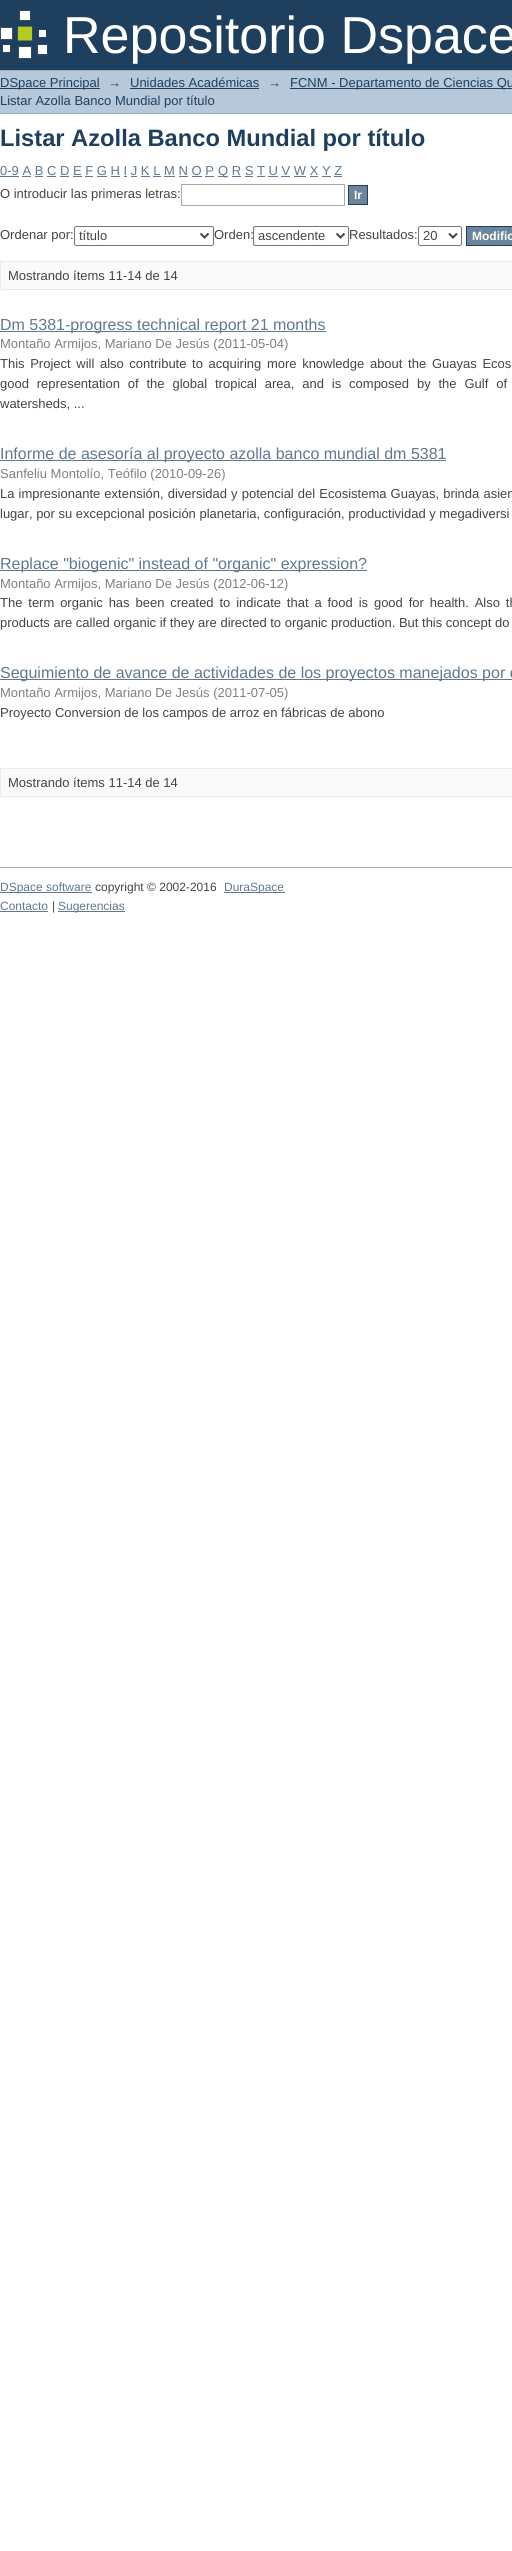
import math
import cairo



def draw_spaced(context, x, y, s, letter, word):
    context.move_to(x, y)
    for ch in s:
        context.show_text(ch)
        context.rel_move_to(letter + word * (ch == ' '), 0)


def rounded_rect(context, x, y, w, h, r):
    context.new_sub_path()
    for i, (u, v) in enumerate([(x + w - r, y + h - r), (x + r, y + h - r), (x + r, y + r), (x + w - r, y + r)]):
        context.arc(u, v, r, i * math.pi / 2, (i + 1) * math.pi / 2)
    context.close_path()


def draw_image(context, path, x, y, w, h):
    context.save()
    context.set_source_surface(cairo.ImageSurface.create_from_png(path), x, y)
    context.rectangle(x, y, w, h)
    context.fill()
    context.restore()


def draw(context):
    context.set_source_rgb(1, 1, 1)
    context.paint()
    context.set_source_rgb(31 / 255, 63 / 255, 94 / 255)
    context.rectangle(0, 0, 512, 70)
    context.fill()
    draw_image(context, "images/1.png", 0, 10, 48, 49)
    context.set_source_rgb(182 / 255, 200 / 255, 217 / 255)
    context.rectangle(0, 71, 512, 42)
    context.fill()
    context.set_source_rgb(156 / 255, 172 / 255, 186 / 255)
    context.rectangle(0, 70, 512, 1)
    context.fill()
    context.rectangle(0, 113, 512, 1)
    context.fill()
    context.set_source_rgb(31 / 255, 63 / 255, 94 / 255)
    context.rectangle(0, 88, 100, 1)
    context.fill()
    context.rectangle(130, 88, 129, 1)
    context.fill()
    context.rectangle(290, 88, 222, 1)
    context.fill()
    context.set_source_rgb(96 / 255, 120 / 255, 144 / 255)
    context.rectangle(0, 176, 19, 1)
    context.fill()
    context.rectangle(218, 176, 10, 1)
    context.fill()
    context.rectangle(22, 176, 9, 1)
    context.fill()
    context.rectangle(35, 176, 8, 1)
    context.fill()
    context.rectangle(47, 176, 9, 1)
    context.fill()
    context.rectangle(60, 176, 9, 1)
    context.fill()
    context.rectangle(73, 176, 9, 1)
    context.fill()
    context.rectangle(85, 176, 8, 1)
    context.fill()
    context.rectangle(97, 176, 10, 1)
    context.fill()
    context.rectangle(111, 176, 9, 1)
    context.fill()
    context.rectangle(124, 176, 3, 1)
    context.fill()
    context.rectangle(131, 176, 6, 1)
    context.fill()
    context.rectangle(141, 176, 9, 1)
    context.fill()
    context.rectangle(153, 176, 8, 1)
    context.fill()
    context.rectangle(164, 176, 11, 1)
    context.fill()
    context.rectangle(179, 176, 9, 1)
    context.fill()
    context.rectangle(192, 176, 10, 1)
    context.fill()
    context.rectangle(205, 176, 9, 1)
    context.fill()
    context.rectangle(232, 176, 9, 1)
    context.fill()
    context.rectangle(245, 176, 8, 1)
    context.fill()
    context.rectangle(257, 176, 8, 1)
    context.fill()
    context.rectangle(268, 176, 10, 1)
    context.fill()
    context.rectangle(281, 176, 9, 1)
    context.fill()
    context.rectangle(294, 176, 12, 1)
    context.fill()
    context.rectangle(310, 176, 8, 1)
    context.fill()
    context.rectangle(322, 176, 9, 1)
    context.fill()
    context.rectangle(334, 176, 8, 1)
    context.fill()
    context.rectangle(181.5, 184.5, 163, 21)
    context.set_source_rgb(170 / 255, 170 / 255, 170 / 255)
    context.set_line_width(1)
    context.stroke()
    context.set_source_rgb(109 / 255, 133 / 255, 156 / 255)
    context.rectangle(348.5, 185.5, 19, 19)
    context.fill_preserve()
    context.set_source_rgb(31 / 255, 63 / 255, 94 / 255)
    context.stroke()
    rounded_rect(context, 74.5, 226.5, 139, 19, 1.5)
    context.set_source_rgb(118 / 255, 118 / 255, 118 / 255)
    context.stroke()
    context.new_path()
    context.move_to(200.5, 233.5)
    context.line_to(204.5, 237.5)
    context.line_to(208.5, 233.5)
    context.set_source_rgb(68 / 255, 68 / 255, 68 / 255)
    context.set_line_width(2)
    context.stroke()
    rounded_rect(context, 253.5, 226.5, 95, 19, 1.5)
    context.set_source_rgb(118 / 255, 118 / 255, 118 / 255)
    context.set_line_width(1)
    context.stroke()
    context.new_path()
    context.move_to(336.5, 233.5)
    context.line_to(340.5, 237.5)
    context.line_to(344.5, 233.5)
    context.set_source_rgb(68 / 255, 68 / 255, 68 / 255)
    context.set_line_width(2)
    context.stroke()
    rounded_rect(context, 418.5, 226.5, 43, 19, 1.5)
    context.set_source_rgb(118 / 255, 118 / 255, 118 / 255)
    context.set_line_width(1)
    context.stroke()
    context.new_path()
    context.move_to(449, 233.5)
    context.line_to(453, 237.5)
    context.line_to(457, 233.5)
    context.set_source_rgb(68 / 255, 68 / 255, 68 / 255)
    context.set_line_width(2)
    context.stroke()
    context.set_source_rgb(109 / 255, 133 / 255, 156 / 255)
    context.rectangle(466.5, 226.5, 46, 19)
    context.fill_preserve()
    context.set_source_rgb(31 / 255, 63 / 255, 94 / 255)
    context.set_line_width(1)
    context.stroke()
    context.set_source_rgb(250 / 255, 250 / 255, 250 / 255)
    context.rectangle(0.5, 261.5, 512, 28)
    context.fill_preserve()
    context.set_source_rgb(235 / 255, 235 / 255, 235 / 255)
    context.stroke()
    context.set_source_rgb(96 / 255, 120 / 255, 144 / 255)
    context.rectangle(0, 331, 326, 1)
    context.fill()
    context.rectangle(0, 460, 446, 1)
    context.fill()
    context.rectangle(0, 570, 367, 1)
    context.fill()
    context.rectangle(0, 679, 512, 1)
    context.fill()
    context.set_source_rgb(250 / 255, 250 / 255, 250 / 255)
    context.rectangle(0.5, 768.5, 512, 28)
    context.fill_preserve()
    context.set_source_rgb(235 / 255, 235 / 255, 235 / 255)
    context.stroke()
    context.set_source_rgb(156 / 255, 172 / 255, 186 / 255)
    context.rectangle(0, 867, 512, 1)
    context.fill()
    context.set_source_rgb(96 / 255, 120 / 255, 144 / 255)
    context.rectangle(0, 892, 92, 1)
    context.fill()
    context.rectangle(224, 892, 61, 1)
    context.fill()
    context.rectangle(0, 911, 48, 1)
    context.fill()
    context.rectangle(58, 911, 67, 1)
    context.fill()
    context.select_font_face("Liberation Sans")
    context.set_font_size(52)
    context.set_source_rgb(1, 1, 1)
    context.move_to(63, 53)
    context.show_text("Repositorio Dspace")
    context.set_font_size(13)
    context.set_source_rgb(31 / 255, 63 / 255, 94 / 255)
    context.move_to(0, 87)
    context.show_text("DSpace Principal")
    context.move_to(108, 87)
    context.show_text("→")
    context.move_to(130, 87)
    context.show_text("Unidades Académicas")
    context.move_to(268, 87)
    context.show_text("→")
    context.move_to(290, 87)
    context.show_text("FCNM - Departamento de Ciencias Qu")
    context.move_to(0, 105)
    context.show_text("Listar Azolla Banco Mundial por título")
    context.select_font_face("Liberation Sans", cairo.FontSlant.NORMAL, cairo.FontWeight.BOLD)
    context.set_font_size(23.7)
    context.move_to(0, 146)
    context.show_text("Listar Azolla Banco Mundial por título")
    context.select_font_face("Liberation Sans")
    context.set_font_size(13)
    context.set_source_rgb(96 / 255, 120 / 255, 144 / 255)
    context.move_to(0, 175)
    context.show_text("0-9 A B C D E F G H I J K L M N O P")
    context.move_to(218, 175)
    context.show_text("Q R S T U V W X Y Z")
    context.set_source_rgb(68 / 255, 68 / 255, 68 / 255)
    context.move_to(0, 198)
    context.show_text("O introducir las primeras letras:")
    context.select_font_face("Liberation Sans", cairo.FontSlant.NORMAL, cairo.FontWeight.BOLD)
    context.set_font_size(12)
    context.set_source_rgb(1, 1, 1)
    context.move_to(354, 199)
    context.show_text("Ir")
    context.select_font_face("Liberation Sans")
    context.set_font_size(13)
    context.set_source_rgb(68 / 255, 68 / 255, 68 / 255)
    context.move_to(0, 239)
    context.show_text("Ordenar por:")
    context.move_to(79, 240)
    context.show_text("título")
    context.move_to(214, 239)
    context.show_text("Orden:")
    context.move_to(258, 240)
    context.show_text("ascendente")
    context.move_to(349, 239)
    context.show_text("Resultados:")
    context.move_to(423, 240)
    context.show_text("20")
    context.select_font_face("Liberation Sans", cairo.FontSlant.NORMAL, cairo.FontWeight.BOLD)
    context.set_font_size(12)
    context.set_source_rgb(1, 1, 1)
    context.move_to(472, 240)
    context.show_text("Modific")
    context.select_font_face("Liberation Sans")
    context.set_font_size(13)
    context.set_source_rgb(68 / 255, 68 / 255, 68 / 255)
    context.move_to(8, 280)
    context.show_text("Mostrando ítems 11-14 de 14")
    context.set_font_size(16)
    context.set_source_rgb(96 / 255, 120 / 255, 144 / 255)
    context.move_to(0, 330)
    context.show_text("Dm 5381-progress technical report 21 months")
    context.set_font_size(13)
    context.set_source_rgb(128 / 255, 128 / 255, 128 / 255)
    context.move_to(0, 348)
    context.show_text("Montaño Armijos, Mariano De Jesús (2011-05-04)")
    context.set_source_rgb(68 / 255, 68 / 255, 68 / 255)
    draw_spaced(context, 0, 368, "This Project will also contribute to acquiring more knowledge about the", 0, 2)
    draw_spaced(context, 432, 368, "Guayas Ecos", 0, 2)
    draw_spaced(context, 0, 388, "good representation of the global", 0, 4.25)
    draw_spaced(context, 215, 388, "tropical area, and is composed by the Gulf of", 0, 4.25)
    context.move_to(0, 408)
    context.show_text("watersheds, ...")
    context.set_font_size(16)
    context.set_source_rgb(96 / 255, 120 / 255, 144 / 255)
    context.move_to(0, 459)
    context.show_text("Informe de asesoría al proyecto azolla banco mundial dm 5381")
    context.set_font_size(13)
    context.set_source_rgb(128 / 255, 128 / 255, 128 / 255)
    context.move_to(0, 478)
    context.show_text("Sanfeliu Montolío, Teófilo (2010-09-26)")
    context.set_source_rgb(68 / 255, 68 / 255, 68 / 255)
    draw_spaced(context, 0, 498, "La impresionante extensión, diversidad y potencial del Ecosistema Guayas, brinda asien", 0, 0.5)
    context.move_to(0, 518)
    context.show_text("lugar, por su excepcional posición planetaria, configuración, productividad y megadiversi")
    context.set_font_size(16)
    context.set_source_rgb(96 / 255, 120 / 255, 144 / 255)
    context.move_to(0, 569)
    context.show_text("Replace \"biogenic\" instead of \"organic\" expression?")
    context.set_font_size(13)
    context.set_source_rgb(128 / 255, 128 / 255, 128 / 255)
    context.move_to(0, 588)
    context.show_text("Montaño Armijos, Mariano De Jesús (2012-06-12)")
    context.set_source_rgb(68 / 255, 68 / 255, 68 / 255)
    draw_spaced(context, 0, 607, "The term organic has been created to indicate that a food is good for health. Also th", 0, 2.25)
    context.move_to(0, 627)
    context.show_text("products are called organic if they are directed to organic production. But this concept do")
    context.set_font_size(16)
    context.set_source_rgb(96 / 255, 120 / 255, 144 / 255)
    context.move_to(0, 678)
    context.show_text("Seguimiento de avance de actividades de los proyectos manejados por c")
    context.set_font_size(13)
    context.set_source_rgb(128 / 255, 128 / 255, 128 / 255)
    context.move_to(0, 697)
    context.show_text("Montaño Armijos, Mariano De Jesús (2011-07-05)")
    context.set_source_rgb(68 / 255, 68 / 255, 68 / 255)
    context.move_to(0, 717)
    context.show_text("Proyecto Conversion de los campos de arroz en fábricas de abono")
    context.move_to(8, 787)
    context.show_text("Mostrando ítems 11-14 de 14")
    context.set_font_size(12)
    context.set_source_rgb(96 / 255, 120 / 255, 144 / 255)
    context.move_to(0, 891)
    context.show_text("DSpace software")
    context.set_source_rgb(68 / 255, 68 / 255, 68 / 255)
    context.move_to(95, 891)
    context.show_text("copyright © 2002-2016")
    context.set_source_rgb(96 / 255, 120 / 255, 144 / 255)
    context.move_to(224, 891)
    context.show_text("DuraSpace")
    context.move_to(0, 910)
    context.show_text("Contacto")
    context.set_source_rgb(68 / 255, 68 / 255, 68 / 255)
    context.move_to(52, 910)
    context.show_text("|")
    context.set_source_rgb(96 / 255, 120 / 255, 144 / 255)
    context.move_to(58, 910)
    context.show_text("Sugerencias")


surface = cairo.ImageSurface(cairo.Format.RGB24, 512, 2551)
context = cairo.Context(surface)
options = cairo.FontOptions()
options.set_hint_metrics(cairo.HintMetrics.OFF)
options.set_hint_style(cairo.HintStyle.NONE)
context.set_font_options(options)
context.set_miter_limit(4)
draw(context)
surface.write_to_png("out.png")
